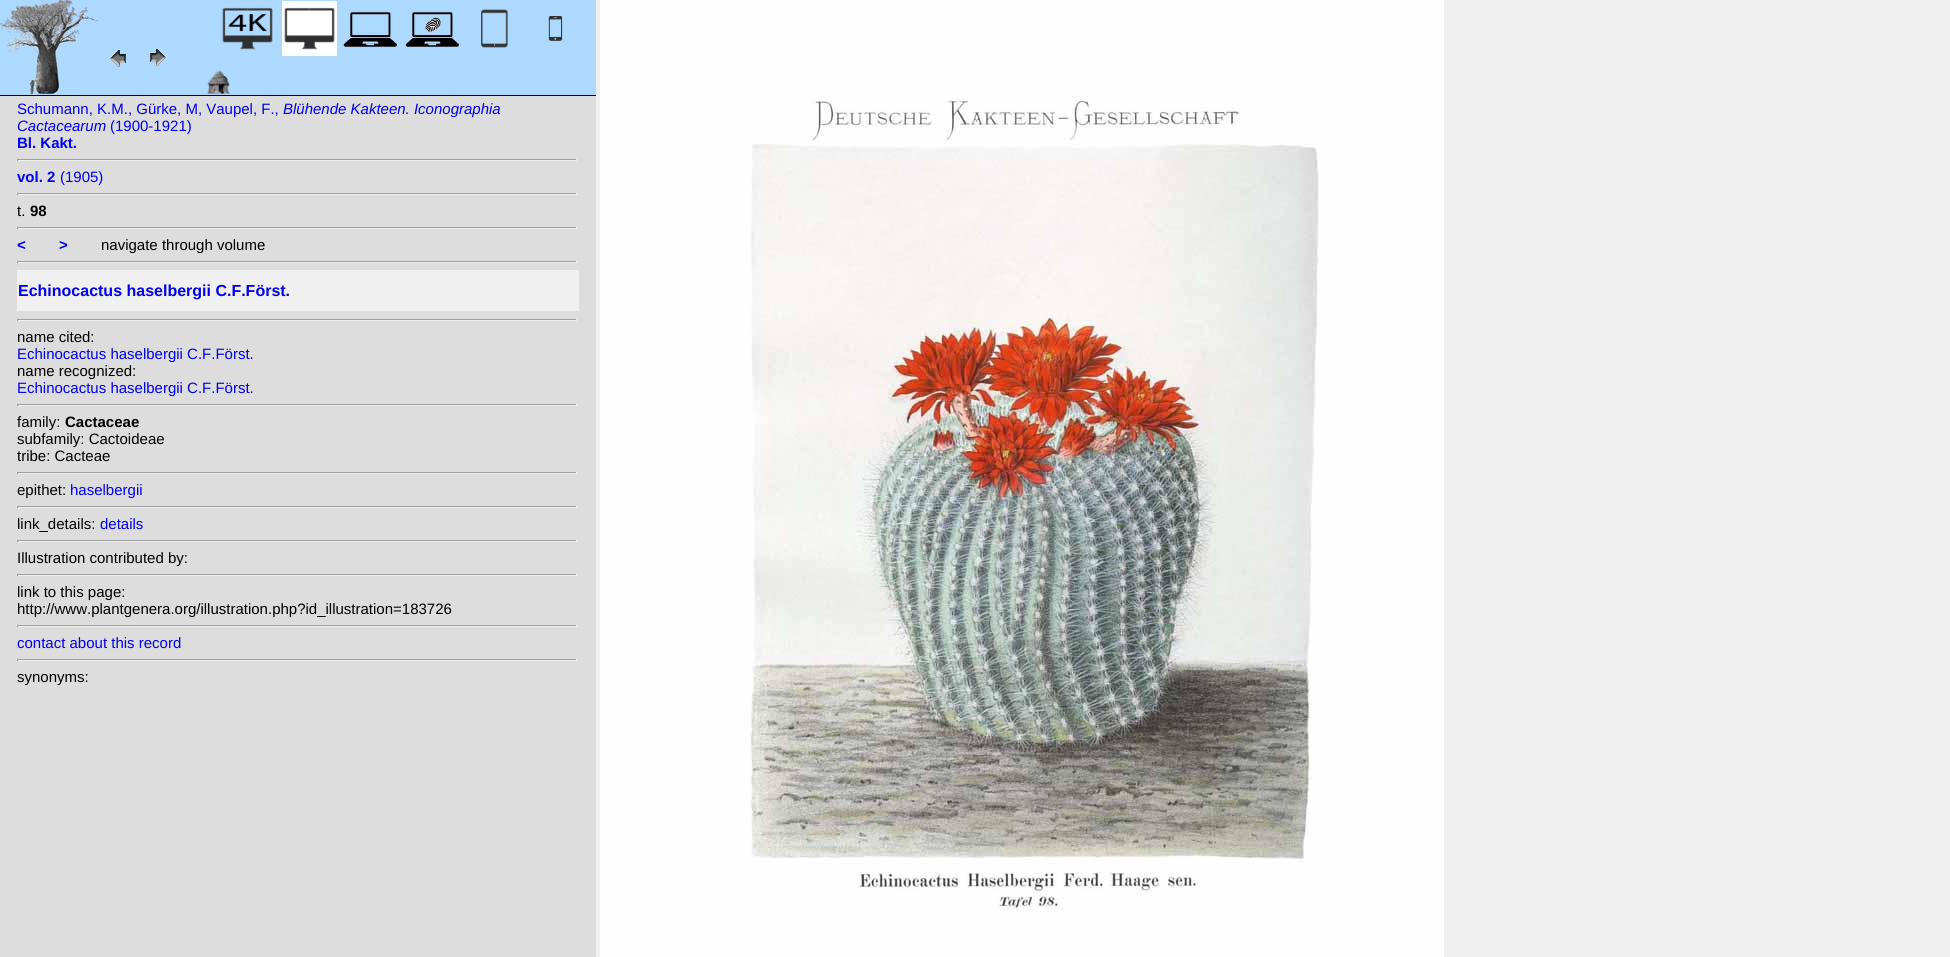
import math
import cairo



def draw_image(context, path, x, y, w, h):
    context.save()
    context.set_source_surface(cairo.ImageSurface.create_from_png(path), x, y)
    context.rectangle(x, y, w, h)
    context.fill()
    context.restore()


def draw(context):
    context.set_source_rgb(240 / 255, 240 / 255, 240 / 255)
    context.paint()
    context.set_source_rgb(221 / 255, 221 / 255, 221 / 255)
    context.rectangle(0, 96, 596, 861)
    context.fill()
    context.set_source_rgb(173 / 255, 217 / 255, 254 / 255)
    context.rectangle(0, 0, 596, 95)
    context.fill()
    context.set_source_rgb(0, 0, 0)
    context.rectangle(0, 95, 596, 1)
    context.fill()
    draw_image(context, "images/1.png", 0, 0, 100, 94)
    draw_image(context, "images/2.png", 110, 50, 16, 17)
    draw_image(context, "images/3.png", 150, 49, 16, 17)
    draw_image(context, "images/4.png", 222, 7, 51, 43)
    draw_image(context, "images/5.png", 282, 1, 55, 55)
    draw_image(context, "images/6.png", 343, 9, 55, 38)
    draw_image(context, "images/7.png", 405, 9, 55, 38)
    draw_image(context, "images/8.png", 481, 9, 27, 39)
    draw_image(context, "images/9.png", 548, 15, 15, 26)
    draw_image(context, "images/10.png", 207, 70, 23, 24)
    context.set_source_rgb(159 / 255, 159 / 255, 159 / 255)
    context.rectangle(17, 159, 560, 1)
    context.fill()
    context.set_source_rgb(238 / 255, 238 / 255, 238 / 255)
    context.rectangle(576, 159, 1, 2)
    context.fill()
    context.rectangle(17, 160, 560, 1)
    context.fill()
    context.set_source_rgb(159 / 255, 159 / 255, 159 / 255)
    context.rectangle(17, 159, 1, 2)
    context.fill()
    context.rectangle(17, 193, 560, 1)
    context.fill()
    context.set_source_rgb(238 / 255, 238 / 255, 238 / 255)
    context.rectangle(576, 193, 1, 2)
    context.fill()
    context.rectangle(17, 194, 560, 1)
    context.fill()
    context.set_source_rgb(159 / 255, 159 / 255, 159 / 255)
    context.rectangle(17, 193, 1, 2)
    context.fill()
    context.rectangle(17, 227, 560, 1)
    context.fill()
    context.set_source_rgb(238 / 255, 238 / 255, 238 / 255)
    context.rectangle(576, 227, 1, 2)
    context.fill()
    context.rectangle(17, 228, 560, 1)
    context.fill()
    context.set_source_rgb(159 / 255, 159 / 255, 159 / 255)
    context.rectangle(17, 227, 1, 2)
    context.fill()
    context.rectangle(17, 261, 560, 1)
    context.fill()
    context.set_source_rgb(238 / 255, 238 / 255, 238 / 255)
    context.rectangle(576, 261, 1, 2)
    context.fill()
    context.rectangle(17, 262, 560, 1)
    context.fill()
    context.set_source_rgb(159 / 255, 159 / 255, 159 / 255)
    context.rectangle(17, 261, 1, 2)
    context.fill()
    context.set_source_rgb(240 / 255, 240 / 255, 240 / 255)
    context.rectangle(17, 270, 562, 41)
    context.fill()
    context.set_source_rgb(159 / 255, 159 / 255, 159 / 255)
    context.rectangle(17, 319, 560, 1)
    context.fill()
    context.set_source_rgb(238 / 255, 238 / 255, 238 / 255)
    context.rectangle(576, 319, 1, 2)
    context.fill()
    context.rectangle(17, 320, 560, 1)
    context.fill()
    context.set_source_rgb(159 / 255, 159 / 255, 159 / 255)
    context.rectangle(17, 319, 1, 2)
    context.fill()
    context.rectangle(17, 404, 560, 1)
    context.fill()
    context.set_source_rgb(238 / 255, 238 / 255, 238 / 255)
    context.rectangle(576, 404, 1, 2)
    context.fill()
    context.rectangle(17, 405, 560, 1)
    context.fill()
    context.set_source_rgb(159 / 255, 159 / 255, 159 / 255)
    context.rectangle(17, 404, 1, 2)
    context.fill()
    context.rectangle(17, 472, 560, 1)
    context.fill()
    context.set_source_rgb(238 / 255, 238 / 255, 238 / 255)
    context.rectangle(576, 472, 1, 2)
    context.fill()
    context.rectangle(17, 473, 560, 1)
    context.fill()
    context.set_source_rgb(159 / 255, 159 / 255, 159 / 255)
    context.rectangle(17, 472, 1, 2)
    context.fill()
    context.rectangle(17, 506, 560, 1)
    context.fill()
    context.set_source_rgb(238 / 255, 238 / 255, 238 / 255)
    context.rectangle(576, 506, 1, 2)
    context.fill()
    context.rectangle(17, 507, 560, 1)
    context.fill()
    context.set_source_rgb(159 / 255, 159 / 255, 159 / 255)
    context.rectangle(17, 506, 1, 2)
    context.fill()
    context.rectangle(17, 540, 560, 1)
    context.fill()
    context.set_source_rgb(238 / 255, 238 / 255, 238 / 255)
    context.rectangle(576, 540, 1, 2)
    context.fill()
    context.rectangle(17, 541, 560, 1)
    context.fill()
    context.set_source_rgb(159 / 255, 159 / 255, 159 / 255)
    context.rectangle(17, 540, 1, 2)
    context.fill()
    context.rectangle(17, 574, 560, 1)
    context.fill()
    context.set_source_rgb(238 / 255, 238 / 255, 238 / 255)
    context.rectangle(576, 574, 1, 2)
    context.fill()
    context.rectangle(17, 575, 560, 1)
    context.fill()
    context.set_source_rgb(159 / 255, 159 / 255, 159 / 255)
    context.rectangle(17, 574, 1, 2)
    context.fill()
    context.rectangle(17, 625, 560, 1)
    context.fill()
    context.set_source_rgb(238 / 255, 238 / 255, 238 / 255)
    context.rectangle(576, 625, 1, 2)
    context.fill()
    context.rectangle(17, 626, 560, 1)
    context.fill()
    context.set_source_rgb(159 / 255, 159 / 255, 159 / 255)
    context.rectangle(17, 625, 1, 2)
    context.fill()
    context.rectangle(17, 659, 560, 1)
    context.fill()
    context.set_source_rgb(238 / 255, 238 / 255, 238 / 255)
    context.rectangle(576, 659, 1, 2)
    context.fill()
    context.rectangle(17, 660, 560, 1)
    context.fill()
    context.set_source_rgb(159 / 255, 159 / 255, 159 / 255)
    context.rectangle(17, 659, 1, 2)
    context.fill()
    draw_image(context, "images/11.png", 600, 0, 844, 957)
    context.select_font_face("Liberation Sans")
    context.set_font_size(15)
    context.set_source_rgb(0, 0, 238 / 255)
    context.move_to(17, 114)
    context.show_text("Schumann, K.M., Gürke, M, Vaupel, F.,")
    context.select_font_face("Liberation Sans", cairo.FontSlant.ITALIC)
    context.move_to(283, 114)
    context.show_text("Blühende Kakteen. Iconographia")
    context.move_to(17, 131)
    context.show_text("Cactacearum")
    context.select_font_face("Liberation Sans")
    context.move_to(110, 131)
    context.show_text("(1900-1921)")
    context.select_font_face("Liberation Sans", cairo.FontSlant.NORMAL, cairo.FontWeight.BOLD)
    context.move_to(17, 148)
    context.show_text("Bl. Kakt.")
    context.move_to(17, 182)
    context.show_text("vol. 2")
    context.select_font_face("Liberation Sans")
    context.move_to(60, 182)
    context.show_text("(1905)")
    context.set_source_rgb(0, 0, 0)
    context.move_to(17, 216)
    context.show_text("t.")
    context.select_font_face("Liberation Sans", cairo.FontSlant.NORMAL, cairo.FontWeight.BOLD)
    context.move_to(30, 216)
    context.show_text("98")
    context.set_source_rgb(0, 0, 238 / 255)
    context.move_to(17, 250)
    context.show_text("<")
    context.move_to(59, 250)
    context.show_text(">")
    context.select_font_face("Liberation Sans")
    context.set_source_rgb(0, 0, 0)
    context.move_to(101, 250)
    context.show_text("navigate through volume")
    context.select_font_face("Liberation Sans", cairo.FontSlant.NORMAL, cairo.FontWeight.BOLD)
    context.set_font_size(16)
    context.set_source_rgb(0, 0, 238 / 255)
    context.move_to(18, 296)
    context.show_text("Echinocactus haselbergii C.F.Först.")
    context.select_font_face("Liberation Sans")
    context.set_font_size(15)
    context.set_source_rgb(0, 0, 0)
    context.move_to(17, 342)
    context.show_text("name cited:")
    context.set_source_rgb(0, 0, 238 / 255)
    context.move_to(17, 359)
    context.show_text("Echinocactus haselbergii C.F.Först.")
    context.set_source_rgb(0, 0, 0)
    context.move_to(17, 376)
    context.show_text("name recognized:")
    context.set_source_rgb(0, 0, 238 / 255)
    context.move_to(17, 393)
    context.show_text("Echinocactus haselbergii C.F.Först.")
    context.set_source_rgb(0, 0, 0)
    context.move_to(17, 427)
    context.show_text("family:")
    context.select_font_face("Liberation Sans", cairo.FontSlant.NORMAL, cairo.FontWeight.BOLD)
    context.move_to(65, 427)
    context.show_text("Cactaceae")
    context.select_font_face("Liberation Sans")
    context.move_to(17, 444)
    context.show_text("subfamily: Cactoideae")
    context.move_to(17, 461)
    context.show_text("tribe: Cacteae")
    context.move_to(17, 495)
    context.show_text("epithet:")
    context.set_source_rgb(0, 0, 238 / 255)
    context.move_to(70, 495)
    context.show_text("haselbergii")
    context.set_source_rgb(0, 0, 0)
    context.move_to(17, 529)
    context.show_text("link_details:")
    context.set_source_rgb(0, 0, 238 / 255)
    context.move_to(100, 529)
    context.show_text("details")
    context.set_source_rgb(0, 0, 0)
    context.move_to(17, 563)
    context.show_text("Illustration contributed by:")
    context.move_to(17, 597)
    context.show_text("link to this page:")
    context.move_to(17, 614)
    context.show_text("http://www.plantgenera.org/illustration.php?id_illustration=183726")
    context.set_source_rgb(0, 0, 238 / 255)
    context.move_to(17, 648)
    context.show_text("contact about this record")
    context.set_source_rgb(0, 0, 0)
    context.move_to(17, 682)
    context.show_text("synonyms:")


surface = cairo.ImageSurface(cairo.Format.RGB24, 1950, 957)
context = cairo.Context(surface)
options = cairo.FontOptions()
options.set_hint_metrics(cairo.HintMetrics.OFF)
options.set_hint_style(cairo.HintStyle.NONE)
context.set_font_options(options)
context.set_miter_limit(4)
draw(context)
surface.write_to_png("out.png")
